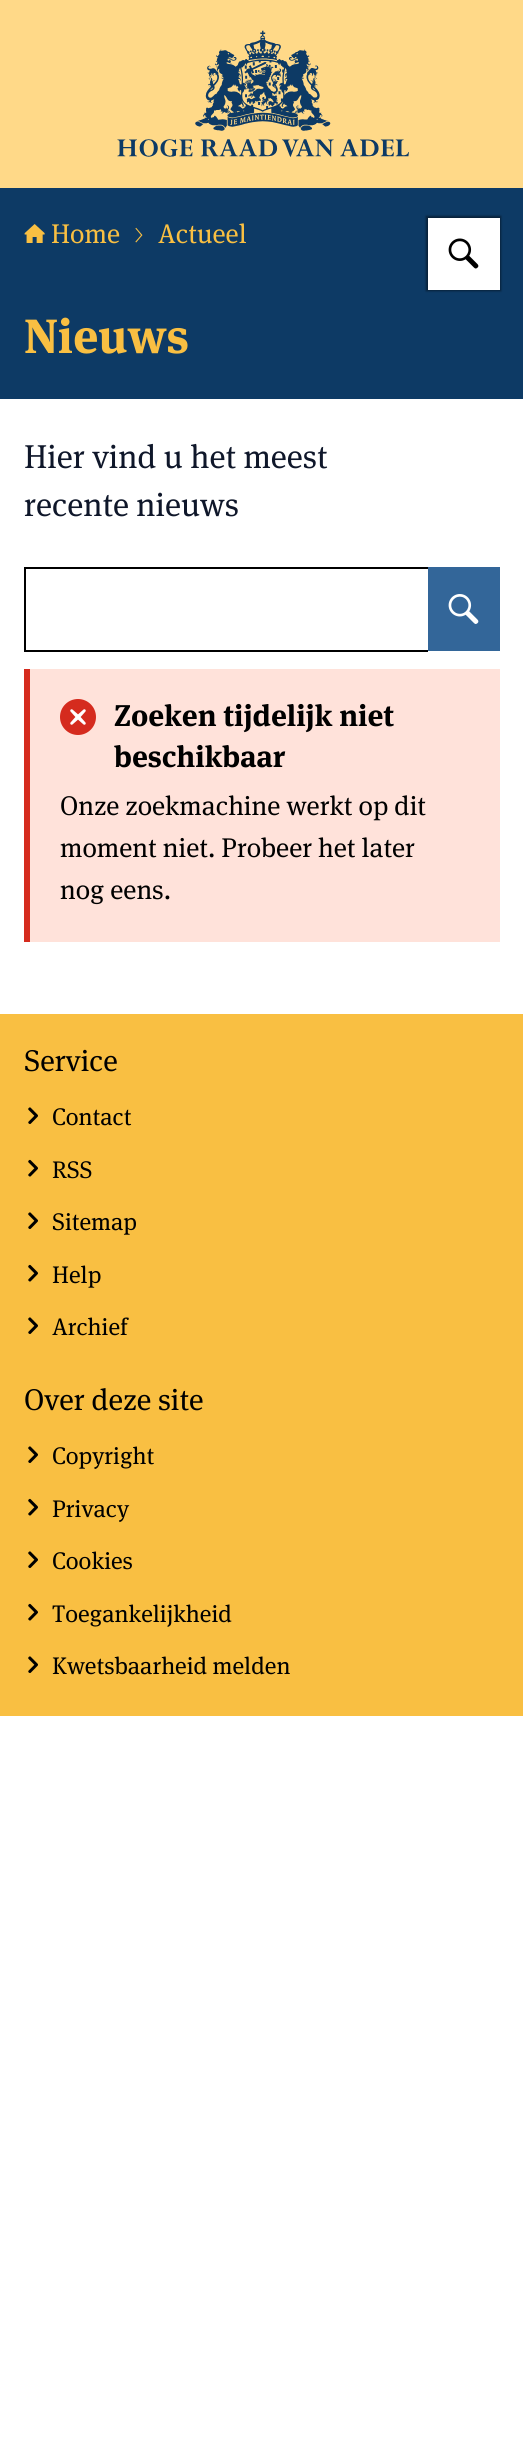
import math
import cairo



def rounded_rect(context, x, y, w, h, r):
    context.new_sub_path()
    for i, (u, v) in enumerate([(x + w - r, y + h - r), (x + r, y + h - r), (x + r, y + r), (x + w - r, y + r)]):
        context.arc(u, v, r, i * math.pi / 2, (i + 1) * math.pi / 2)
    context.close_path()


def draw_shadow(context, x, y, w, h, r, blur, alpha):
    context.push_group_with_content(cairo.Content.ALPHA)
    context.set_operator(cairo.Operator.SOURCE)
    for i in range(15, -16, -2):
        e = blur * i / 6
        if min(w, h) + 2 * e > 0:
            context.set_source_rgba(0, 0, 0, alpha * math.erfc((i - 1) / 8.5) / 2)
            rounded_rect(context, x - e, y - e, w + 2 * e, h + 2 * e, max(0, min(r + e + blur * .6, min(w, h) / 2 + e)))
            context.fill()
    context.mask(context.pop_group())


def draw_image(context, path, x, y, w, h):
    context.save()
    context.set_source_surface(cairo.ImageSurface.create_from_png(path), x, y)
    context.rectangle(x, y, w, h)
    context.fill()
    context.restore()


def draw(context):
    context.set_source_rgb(1, 1, 1)
    context.paint()
    context.set_source_rgb(1, 217 / 255, 136 / 255)
    context.rectangle(0, 0, 523, 188)
    context.fill()
    draw_image(context, "images/1.png", 117, 30, 292, 127)
    context.set_source_rgb(13 / 255, 58 / 255, 101 / 255)
    context.rectangle(0, 188, 523, 211)
    context.fill()
    draw_image(context, "images/2.png", 24, 224, 21, 19)
    draw_image(context, "images/3.png", 135, 227, 8, 16)
    context.set_source_rgb(0, 0, 0)
    draw_shadow(context, 426, 216, 75, 75, 0, 1, 0.44)
    context.set_source_rgb(1, 1, 1)
    context.rectangle(428, 218, 72, 72)
    context.fill()
    draw_image(context, "images/4.png", 448, 238, 31, 31)
    context.set_source_rgb(0, 0, 0)
    context.rectangle(24, 567, 404, 2)
    context.fill()
    context.rectangle(24, 650, 404, 2)
    context.fill()
    context.rectangle(24, 567, 2, 84)
    context.fill()
    context.set_source_rgb(51 / 255, 102 / 255, 153 / 255)
    context.rectangle(428, 567, 72, 84)
    context.fill()
    draw_image(context, "images/5.png", 448, 594, 31, 30)
    context.set_source_rgb(1, 226 / 255, 218 / 255)
    context.rectangle(30, 669, 470, 273)
    context.fill()
    context.set_source_rgb(213 / 255, 43 / 255, 30 / 255)
    context.rectangle(24, 669, 6, 273)
    context.fill()
    draw_image(context, "images/6.png", 60, 699, 36, 36)
    context.set_source_rgb(249 / 255, 191 / 255, 66 / 255)
    context.rectangle(0, 1014, 523, 702)
    context.fill()
    draw_image(context, "images/7.png", 28, 1107, 10, 17)
    draw_image(context, "images/8.png", 28, 1159, 10, 18)
    draw_image(context, "images/7.png", 28, 1212, 10, 17)
    draw_image(context, "images/8.png", 28, 1264, 10, 18)
    draw_image(context, "images/7.png", 28, 1317, 10, 17)
    draw_image(context, "images/7.png", 28, 1446, 10, 17)
    draw_image(context, "images/8.png", 28, 1498, 10, 18)
    draw_image(context, "images/7.png", 28, 1551, 10, 17)
    draw_image(context, "images/8.png", 28, 1603, 10, 18)
    draw_image(context, "images/7.png", 28, 1656, 10, 17)
    context.select_font_face("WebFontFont")
    context.set_font_size(27)
    context.move_to(51, 243)
    context.show_text("Home")
    context.move_to(158, 243)
    context.show_text("Actueel")
    context.select_font_face("WebFontFont", cairo.FontSlant.NORMAL, cairo.FontWeight.BOLD)
    context.set_font_size(48)
    context.move_to(24, 353)
    context.show_text("Nieuws")
    context.select_font_face("WebFontFont")
    context.set_font_size(33)
    context.set_source_rgb(15 / 255, 23 / 255, 42 / 255)
    context.move_to(24, 468)
    context.show_text("Hier vind u het meest")
    context.move_to(24, 516)
    context.show_text("recente nieuws")
    context.select_font_face("WebFontFont", cairo.FontSlant.NORMAL, cairo.FontWeight.BOLD)
    context.set_font_size(30)
    context.set_source_rgb(0, 0, 0)
    context.move_to(114, 726)
    context.show_text("Zoeken tijdelijk niet")
    context.move_to(114, 767)
    context.show_text("beschikbaar")
    context.select_font_face("WebFontFont")
    context.set_font_size(27)
    context.move_to(60, 815)
    context.show_text("Onze zoekmachine werkt op dit")
    context.move_to(60, 857)
    context.show_text("moment niet. Probeer het later")
    context.move_to(60, 899)
    context.show_text("nog eens.")
    context.set_font_size(30)
    context.move_to(24, 1071)
    context.show_text("Service")
    context.set_font_size(24)
    context.move_to(52, 1125)
    context.show_text("Contact")
    context.move_to(52, 1178)
    context.show_text("RSS")
    context.move_to(52, 1230)
    context.show_text("Sitemap")
    context.move_to(52, 1283)
    context.show_text("Help")
    context.move_to(52, 1335)
    context.show_text("Archief")
    context.set_font_size(30)
    context.move_to(24, 1410)
    context.show_text("Over deze site")
    context.set_font_size(24)
    context.move_to(52, 1464)
    context.show_text("Copyright")
    context.move_to(52, 1517)
    context.show_text("Privacy")
    context.move_to(52, 1569)
    context.show_text("Cookies")
    context.move_to(52, 1622)
    context.show_text("Toegankelijkheid")
    context.move_to(52, 1674)
    context.show_text("Kwetsbaarheid melden")


surface = cairo.ImageSurface(cairo.Format.RGB24, 523, 2459)
context = cairo.Context(surface)
options = cairo.FontOptions()
options.set_hint_metrics(cairo.HintMetrics.OFF)
options.set_hint_style(cairo.HintStyle.NONE)
context.set_font_options(options)
context.set_miter_limit(4)
draw(context)
surface.write_to_png("out.png")
